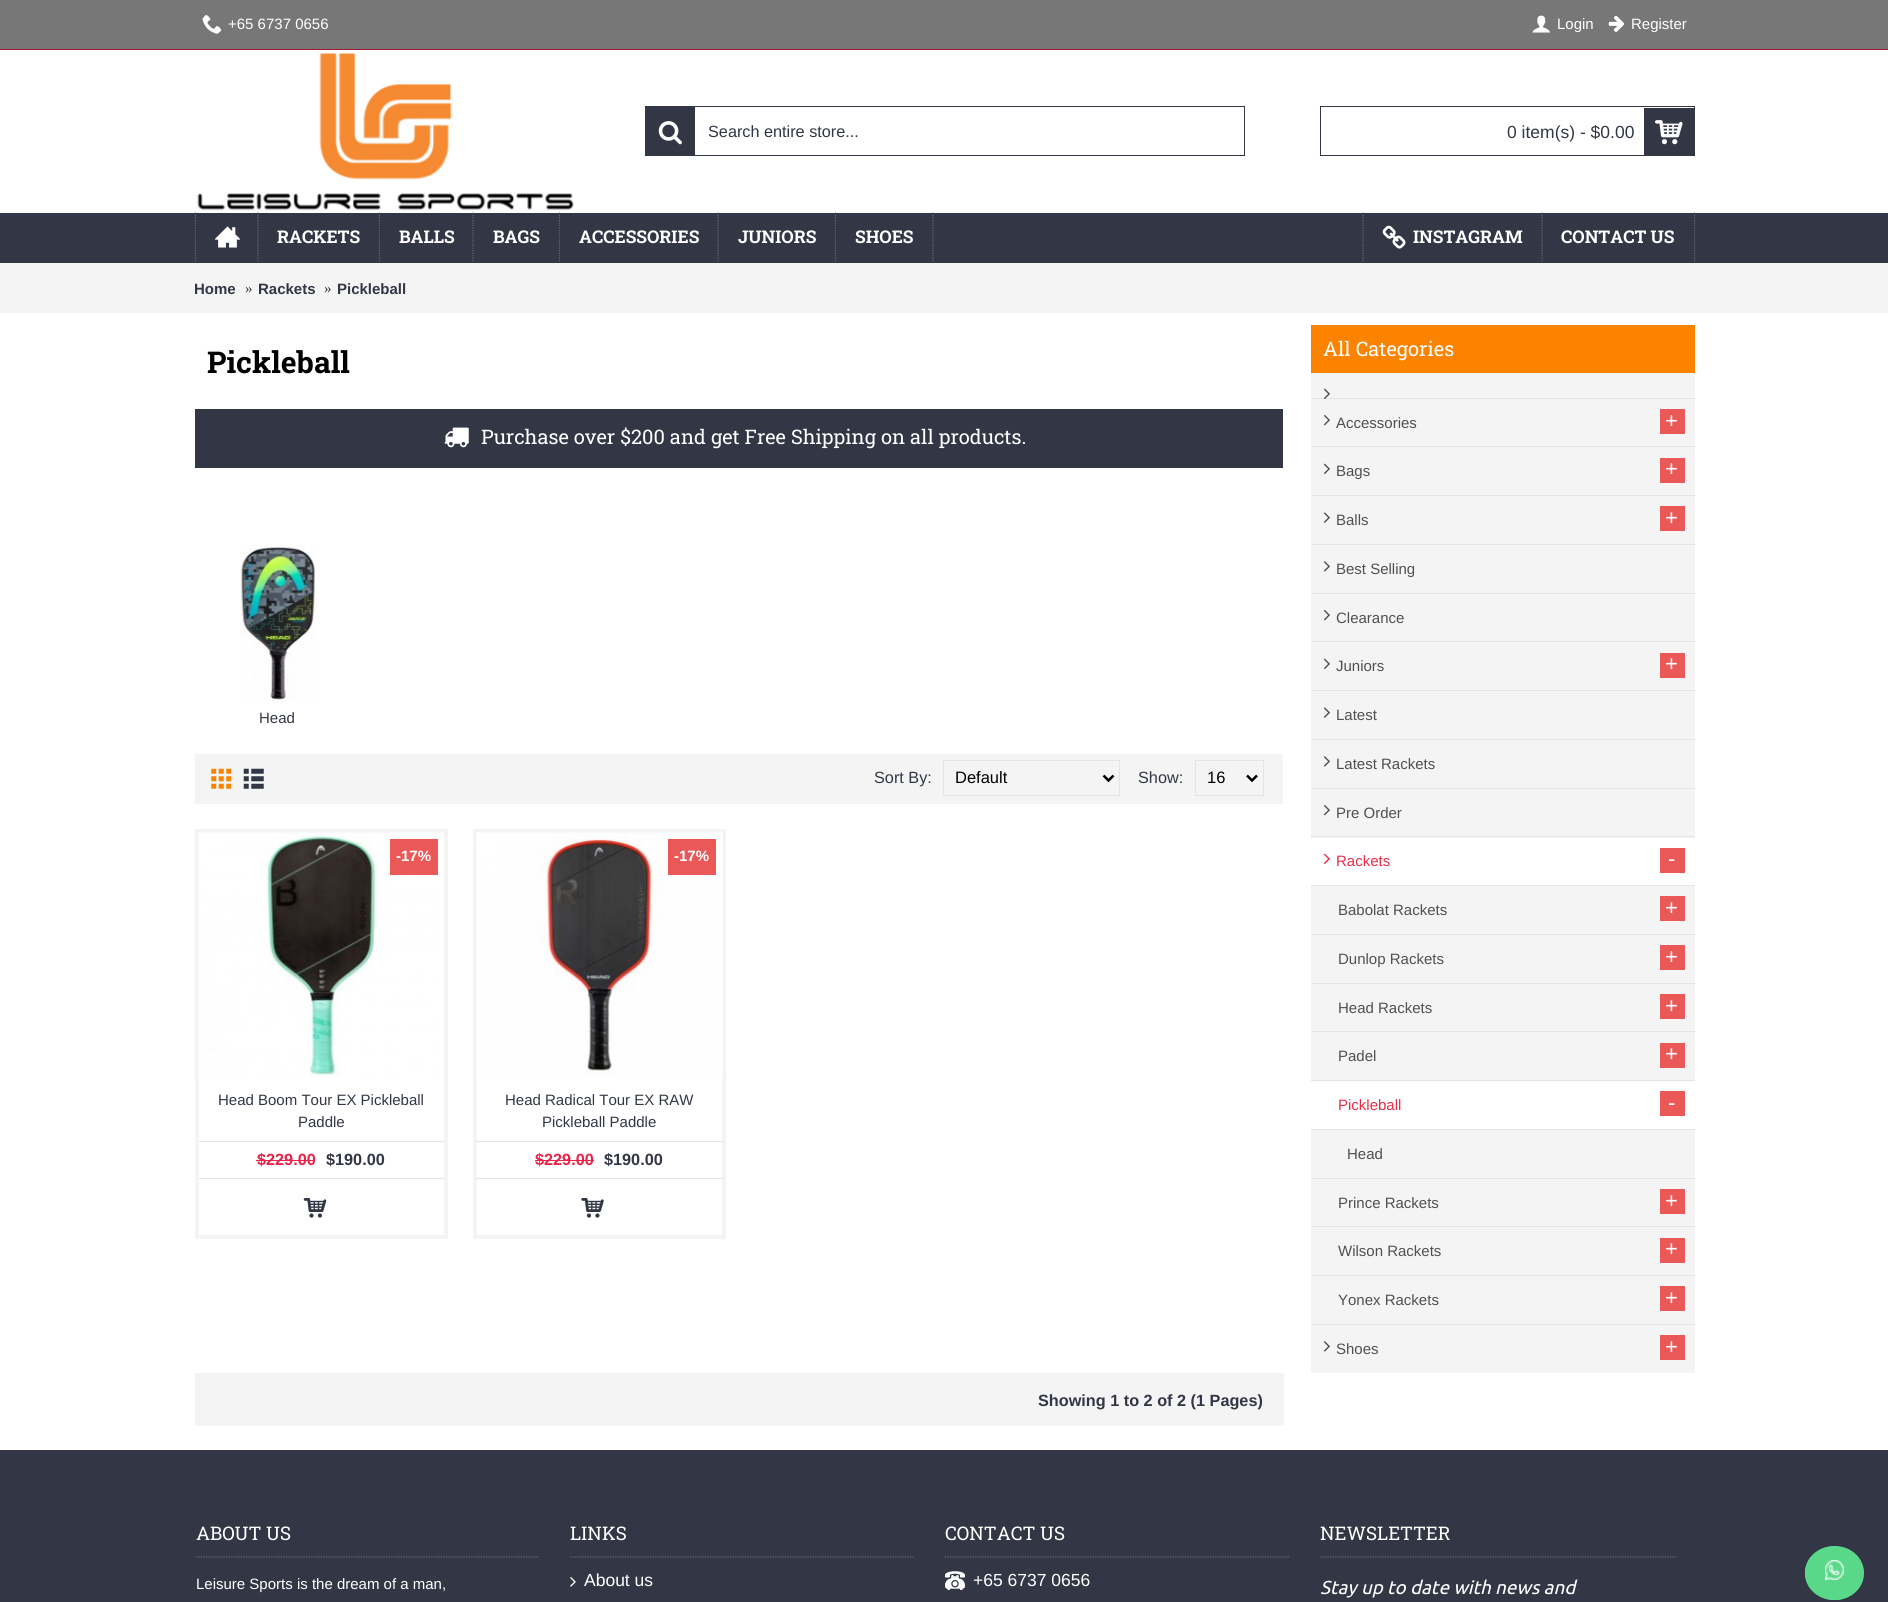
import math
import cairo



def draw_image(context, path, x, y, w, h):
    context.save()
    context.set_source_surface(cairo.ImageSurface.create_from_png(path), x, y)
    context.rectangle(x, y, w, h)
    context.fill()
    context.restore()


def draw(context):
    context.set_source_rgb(1, 1, 1)
    context.paint()
    context.set_source_rgb(119 / 255, 119 / 255, 119 / 255)
    context.rectangle(0, 0, 1888, 49)
    context.fill()
    context.set_source_rgb(164 / 255, 23 / 255, 51 / 255)
    context.rectangle(0, 49, 1888, 1)
    context.fill()
    draw_image(context, "images/1.png", 202, 15, 20, 19)
    draw_image(context, "images/2.png", 1532, 15, 18, 18)
    draw_image(context, "images/3.png", 1608, 15, 17, 17)
    draw_image(context, "images/4.png", 197, 52, 377, 159)
    context.rectangle(645.5, 106.5, 599, 49)
    context.set_source_rgb(51 / 255, 55 / 255, 69 / 255)
    context.set_line_width(1)
    context.stroke()
    context.rectangle(646, 107, 49, 48)
    context.fill()
    draw_image(context, "images/5.png", 658, 121, 24, 24)
    context.rectangle(1320.5, 106.5, 374, 49)
    context.stroke()
    context.rectangle(1644, 108, 50, 47)
    context.fill()
    draw_image(context, "images/6.png", 1655, 120, 28, 25)
    context.rectangle(0, 213, 1888, 50)
    context.fill()
    context.new_path()
    context.move_to(1694.5, 212.5)
    context.line_to(1694.5, 262.5)
    context.set_source_rgb(95 / 255, 104 / 255, 116 / 255)
    context.set_line_width(1.2)
    context.set_dash([1.25, 1.25])
    context.stroke()
    context.new_path()
    context.move_to(195.5, 212.5)
    context.line_to(195.5, 262.5)
    context.stroke()
    context.set_source_rgb(51 / 255, 55 / 255, 69 / 255)
    context.rectangle(196, 213, 1, 48)
    context.fill()
    context.new_path()
    context.move_to(258, 212.5)
    context.line_to(258, 262.5)
    context.set_source_rgb(95 / 255, 104 / 255, 116 / 255)
    context.stroke()
    draw_image(context, "images/7.png", 215, 226, 25, 22)
    context.new_path()
    context.move_to(379.5, 212.5)
    context.line_to(379.5, 262.5)
    context.stroke()
    context.set_source_rgb(51 / 255, 55 / 255, 69 / 255)
    context.rectangle(380, 213, 1, 48)
    context.fill()
    context.new_path()
    context.move_to(473, 212.5)
    context.line_to(473, 262.5)
    context.set_source_rgb(95 / 255, 104 / 255, 116 / 255)
    context.stroke()
    context.new_path()
    context.move_to(559.5, 212.5)
    context.line_to(559.5, 262.5)
    context.stroke()
    context.set_source_rgb(51 / 255, 55 / 255, 69 / 255)
    context.rectangle(560, 213, 1, 48)
    context.fill()
    context.new_path()
    context.move_to(718, 212.5)
    context.line_to(718, 262.5)
    context.set_source_rgb(95 / 255, 104 / 255, 116 / 255)
    context.stroke()
    context.new_path()
    context.move_to(835.5, 212.5)
    context.line_to(835.5, 262.5)
    context.stroke()
    context.set_source_rgb(51 / 255, 55 / 255, 69 / 255)
    context.rectangle(836, 213, 1, 48)
    context.fill()
    context.new_path()
    context.move_to(933, 212.5)
    context.line_to(933, 262.5)
    context.set_source_rgb(95 / 255, 104 / 255, 116 / 255)
    context.stroke()
    context.new_path()
    context.move_to(1363, 212.5)
    context.line_to(1363, 262.5)
    context.stroke()
    draw_image(context, "images/8.png", 1382, 225, 24, 24)
    context.set_source_rgb(51 / 255, 55 / 255, 69 / 255)
    context.rectangle(1693, 213, 1, 48)
    context.fill()
    context.new_path()
    context.move_to(1542, 212.5)
    context.line_to(1542, 262.5)
    context.set_source_rgb(95 / 255, 104 / 255, 116 / 255)
    context.stroke()
    context.set_source_rgb(244 / 255, 244 / 255, 244 / 255)
    context.rectangle(0, 263, 1888, 50)
    context.fill()
    context.set_source_rgb(51 / 255, 55 / 255, 69 / 255)
    context.rectangle(195, 409, 1088, 59)
    context.fill()
    draw_image(context, "images/9.png", 444, 427, 25, 21)
    draw_image(context, "images/10.png", 240, 545, 76, 156)
    context.set_source_rgb(244 / 255, 244 / 255, 244 / 255)
    context.rectangle(195, 754, 1088, 50)
    context.fill()
    draw_image(context, "images/11.png", 211, 768, 21, 21)
    draw_image(context, "images/12.png", 243, 768, 21, 21)
    context.rectangle(943.5, 760.5, 176, 35)
    context.set_source_rgb(228 / 255, 228 / 255, 228 / 255)
    context.set_line_width(1)
    context.set_dash([])
    context.stroke()
    context.new_path()
    context.move_to(1103.5, 775.5)
    context.line_to(1108.5, 780.5)
    context.line_to(1113.5, 775.5)
    context.set_source_rgb(0, 0, 0)
    context.set_line_width(2.5)
    context.stroke()
    context.rectangle(1195.5, 760.5, 68, 35)
    context.set_source_rgb(228 / 255, 228 / 255, 228 / 255)
    context.set_line_width(1)
    context.stroke()
    context.new_path()
    context.move_to(1247, 775.5)
    context.line_to(1252, 780.5)
    context.line_to(1257, 775.5)
    context.set_source_rgb(0, 0, 0)
    context.set_line_width(2.5)
    context.stroke()
    context.rectangle(197, 831, 249, 406)
    context.set_source_rgb(244 / 255, 244 / 255, 244 / 255)
    context.set_line_width(4)
    context.stroke()
    draw_image(context, "images/13.png", 198, 832, 245, 246)
    context.set_source_rgb(235 / 255, 88 / 255, 88 / 255)
    context.rectangle(390, 839, 48, 36)
    context.fill()
    context.set_source_rgb(228 / 255, 228 / 255, 228 / 255)
    context.rectangle(199, 1141, 245, 1)
    context.fill()
    context.rectangle(199, 1178, 245, 1)
    context.fill()
    context.set_source_rgb(234 / 255, 35 / 255, 73 / 255)
    context.rectangle(256, 1160, 59, 1)
    context.fill()
    draw_image(context, "images/14.png", 303, 1198, 24, 20)
    context.rectangle(475, 831, 249, 406)
    context.set_source_rgb(244 / 255, 244 / 255, 244 / 255)
    context.stroke()
    draw_image(context, "images/15.png", 476, 832, 247, 246)
    context.set_source_rgb(235 / 255, 88 / 255, 88 / 255)
    context.rectangle(668, 839, 48, 36)
    context.fill()
    context.set_source_rgb(228 / 255, 228 / 255, 228 / 255)
    context.rectangle(476, 1141, 247, 1)
    context.fill()
    context.rectangle(476, 1178, 247, 1)
    context.fill()
    context.set_source_rgb(234 / 255, 35 / 255, 73 / 255)
    context.rectangle(535, 1160, 59, 1)
    context.fill()
    draw_image(context, "images/16.png", 581, 1198, 23, 20)
    context.set_source_rgb(245 / 255, 245 / 255, 245 / 255)
    context.new_path()
    context.move_to(196, 1425)
    context.line_to(196, 1426)
    context.line_to(1284, 1426)
    context.line_to(1284, 1374)
    context.line_to(1282, 1374)
    context.line_to(1282, 1425)
    context.close_path()
    context.fill()
    context.set_source_rgb(244 / 255, 244 / 255, 244 / 255)
    context.rectangle(195, 1373, 1088, 52)
    context.fill()
    context.rectangle(1311, 373, 384, 1000)
    context.fill()
    context.set_source_rgb(252 / 255, 131 / 255, 0)
    context.rectangle(1311, 325, 384, 48)
    context.fill()
    context.set_source_rgb(228 / 255, 228 / 255, 228 / 255)
    context.rectangle(1311, 398, 384, 1)
    context.fill()
    draw_image(context, "images/17.png", 1323, 388, 7, 11)
    context.rectangle(1311, 446, 384, 1)
    context.fill()
    draw_image(context, "images/18.png", 1323, 415, 7, 11)
    context.set_source_rgb(235 / 255, 88 / 255, 88 / 255)
    context.rectangle(1660, 409, 25, 25)
    context.fill()
    context.set_source_rgb(228 / 255, 228 / 255, 228 / 255)
    context.rectangle(1311, 495, 384, 1)
    context.fill()
    draw_image(context, "images/19.png", 1323, 463, 7, 11)
    context.set_source_rgb(235 / 255, 88 / 255, 88 / 255)
    context.rectangle(1660, 458, 25, 25)
    context.fill()
    context.set_source_rgb(228 / 255, 228 / 255, 228 / 255)
    context.rectangle(1311, 544, 384, 1)
    context.fill()
    draw_image(context, "images/20.png", 1323, 512, 7, 11)
    context.set_source_rgb(235 / 255, 88 / 255, 88 / 255)
    context.rectangle(1660, 506, 25, 25)
    context.fill()
    context.set_source_rgb(228 / 255, 228 / 255, 228 / 255)
    context.rectangle(1311, 593, 384, 1)
    context.fill()
    draw_image(context, "images/21.png", 1323, 561, 7, 11)
    context.rectangle(1311, 641, 384, 1)
    context.fill()
    draw_image(context, "images/18.png", 1323, 610, 7, 11)
    context.rectangle(1311, 690, 384, 1)
    context.fill()
    draw_image(context, "images/19.png", 1323, 658, 7, 11)
    context.set_source_rgb(235 / 255, 88 / 255, 88 / 255)
    context.rectangle(1660, 653, 25, 25)
    context.fill()
    context.set_source_rgb(228 / 255, 228 / 255, 228 / 255)
    context.rectangle(1311, 739, 384, 1)
    context.fill()
    draw_image(context, "images/20.png", 1323, 707, 7, 11)
    context.rectangle(1311, 788, 384, 1)
    context.fill()
    draw_image(context, "images/21.png", 1323, 756, 7, 11)
    context.rectangle(1311, 836, 384, 1)
    context.fill()
    draw_image(context, "images/18.png", 1323, 805, 7, 11)
    context.set_source_rgb(1, 1, 1)
    context.rectangle(1311, 838, 384, 47)
    context.fill()
    context.set_source_rgb(228 / 255, 228 / 255, 228 / 255)
    context.rectangle(1311, 885, 384, 1)
    context.fill()
    draw_image(context, "images/22.png", 1323, 853, 7, 12)
    context.set_source_rgb(235 / 255, 88 / 255, 88 / 255)
    context.rectangle(1660, 848, 25, 25)
    context.fill()
    context.set_source_rgb(228 / 255, 228 / 255, 228 / 255)
    context.rectangle(1311, 934, 384, 1)
    context.fill()
    context.set_source_rgb(235 / 255, 88 / 255, 88 / 255)
    context.rectangle(1660, 896, 25, 25)
    context.fill()
    context.set_source_rgb(228 / 255, 228 / 255, 228 / 255)
    context.rectangle(1311, 983, 384, 1)
    context.fill()
    context.set_source_rgb(235 / 255, 88 / 255, 88 / 255)
    context.rectangle(1660, 945, 25, 25)
    context.fill()
    context.set_source_rgb(228 / 255, 228 / 255, 228 / 255)
    context.rectangle(1311, 1031, 384, 1)
    context.fill()
    context.set_source_rgb(235 / 255, 88 / 255, 88 / 255)
    context.rectangle(1660, 994, 25, 25)
    context.fill()
    context.set_source_rgb(228 / 255, 228 / 255, 228 / 255)
    context.rectangle(1311, 1080, 384, 1)
    context.fill()
    context.set_source_rgb(235 / 255, 88 / 255, 88 / 255)
    context.rectangle(1660, 1043, 25, 25)
    context.fill()
    context.set_source_rgb(1, 1, 1)
    context.rectangle(1311, 1081, 384, 48)
    context.fill()
    context.set_source_rgb(228 / 255, 228 / 255, 228 / 255)
    context.rectangle(1311, 1129, 384, 1)
    context.fill()
    context.set_source_rgb(235 / 255, 88 / 255, 88 / 255)
    context.rectangle(1660, 1091, 25, 25)
    context.fill()
    context.set_source_rgb(228 / 255, 228 / 255, 228 / 255)
    context.rectangle(1311, 1178, 384, 1)
    context.fill()
    context.rectangle(1311, 1226, 384, 1)
    context.fill()
    context.set_source_rgb(235 / 255, 88 / 255, 88 / 255)
    context.rectangle(1660, 1189, 25, 25)
    context.fill()
    context.set_source_rgb(228 / 255, 228 / 255, 228 / 255)
    context.rectangle(1311, 1275, 384, 1)
    context.fill()
    context.set_source_rgb(235 / 255, 88 / 255, 88 / 255)
    context.rectangle(1660, 1238, 25, 25)
    context.fill()
    context.set_source_rgb(228 / 255, 228 / 255, 228 / 255)
    context.rectangle(1311, 1324, 384, 1)
    context.fill()
    context.set_source_rgb(235 / 255, 88 / 255, 88 / 255)
    context.rectangle(1660, 1286, 25, 25)
    context.fill()
    draw_image(context, "images/21.png", 1323, 1341, 7, 11)
    context.rectangle(1660, 1335, 25, 25)
    context.fill()
    context.set_source_rgb(51 / 255, 55 / 255, 69 / 255)
    context.rectangle(0, 1450, 1888, 152)
    context.fill()
    context.new_path()
    context.move_to(196, 1557)
    context.line_to(539, 1557)
    context.set_source_rgb(95 / 255, 104 / 255, 116 / 255)
    context.set_line_width(1.2)
    context.set_dash([1.25, 1.25])
    context.stroke()
    context.new_path()
    context.move_to(570, 1557)
    context.line_to(914, 1557)
    context.stroke()
    draw_image(context, "images/23.png", 570, 1577, 6, 10)
    context.new_path()
    context.move_to(945, 1557)
    context.line_to(1289, 1557)
    context.stroke()
    draw_image(context, "images/24.png", 945, 1571, 20, 19)
    context.new_path()
    context.move_to(1320, 1557)
    context.line_to(1676, 1557)
    context.stroke()
    context.set_source_rgb(88 / 255, 216 / 255, 136 / 255)
    context.new_path()
    context.move_to(1834.5, 1546)
    context.curve_to(1851, 1546, 1864, 1558, 1864, 1573)
    context.curve_to(1864, 1588, 1851, 1600, 1834.5, 1600)
    context.curve_to(1818, 1600, 1805, 1588, 1805, 1573)
    context.curve_to(1805, 1558, 1818, 1546, 1834.5, 1546)
    context.close_path()
    context.fill()
    context.new_path()
    context.move_to(1834.5, 1547)
    context.curve_to(1850.5, 1547, 1863, 1558.5, 1863, 1573)
    context.curve_to(1863, 1587.5, 1850.5, 1599.5, 1834.5, 1599.5)
    context.curve_to(1818.5, 1599.5, 1805.5, 1587.5, 1805.5, 1573)
    context.curve_to(1805.5, 1558.5, 1818.5, 1547, 1834.5, 1547)
    context.close_path()
    context.set_dash([])
    context.stroke()
    draw_image(context, "images/25.png", 1825, 1560, 19, 20)
    context.select_font_face("Liberation Sans")
    context.set_font_size(15)
    context.set_source_rgb(1, 1, 1)
    context.move_to(228, 29)
    context.show_text("+65 6737 0656")
    context.move_to(1557, 29)
    context.show_text("Login")
    context.move_to(1631, 29)
    context.show_text("Register")
    context.set_font_size(16.25)
    context.set_source_rgb(51 / 255, 55 / 255, 69 / 255)
    context.move_to(708, 137)
    context.show_text("Search entire store...")
    context.set_font_size(17.5)
    context.move_to(1507, 138)
    context.show_text("0 item(s) - $0.00")
    context.select_font_face("Roboto Slab", cairo.FontSlant.NORMAL, cairo.FontWeight.BOLD)
    context.set_source_rgb(1, 1, 1)
    context.move_to(277, 243)
    context.show_text("RACKETS")
    context.move_to(399, 243)
    context.show_text("BALLS")
    context.move_to(493, 243)
    context.show_text("BAGS")
    context.move_to(579, 243)
    context.show_text("ACCESSORIES")
    context.move_to(738, 243)
    context.show_text("JUNIORS")
    context.move_to(855, 243)
    context.show_text("SHOES")
    context.move_to(1413, 243)
    context.show_text("INSTAGRAM")
    context.move_to(1561, 243)
    context.show_text("CONTACT US")
    context.select_font_face("Liberation Sans", cairo.FontSlant.NORMAL, cairo.FontWeight.BOLD)
    context.set_font_size(15)
    context.set_source_rgb(51 / 255, 55 / 255, 69 / 255)
    context.move_to(194, 294)
    context.show_text("Home")
    context.select_font_face("Liberation Serif")
    context.move_to(245, 293)
    context.show_text("»")
    context.select_font_face("Liberation Sans", cairo.FontSlant.NORMAL, cairo.FontWeight.BOLD)
    context.move_to(258, 294)
    context.show_text("Rackets")
    context.select_font_face("Liberation Serif")
    context.move_to(324, 293)
    context.show_text("»")
    context.select_font_face("Liberation Sans", cairo.FontSlant.NORMAL, cairo.FontWeight.BOLD)
    context.move_to(337, 294)
    context.show_text("Pickleball")
    context.select_font_face("Roboto Slab", cairo.FontSlant.NORMAL, cairo.FontWeight.BOLD)
    context.set_font_size(30)
    context.set_source_rgb(0, 0, 0)
    context.move_to(207, 373)
    context.show_text("Pickleball")
    context.select_font_face("Roboto Slab")
    context.set_font_size(20)
    context.set_source_rgb(1, 1, 1)
    context.move_to(481, 444)
    context.show_text("Purchase over $200 and get Free Shipping on all products.")
    context.select_font_face("Liberation Sans")
    context.set_font_size(15)
    context.set_source_rgb(51 / 255, 55 / 255, 69 / 255)
    context.move_to(259, 723)
    context.show_text("Head")
    context.set_font_size(16.25)
    context.move_to(874, 783)
    context.show_text("Sort By:")
    context.set_font_size(16.5)
    context.set_source_rgb(0, 0, 0)
    context.move_to(955, 783)
    context.show_text("Default")
    context.set_font_size(16.25)
    context.set_source_rgb(51 / 255, 55 / 255, 69 / 255)
    context.move_to(1138, 783)
    context.show_text("Show:")
    context.set_font_size(16.5)
    context.set_source_rgb(0, 0, 0)
    context.move_to(1207, 783)
    context.show_text("16")
    context.select_font_face("Liberation Sans", cairo.FontSlant.NORMAL, cairo.FontWeight.BOLD)
    context.set_font_size(15)
    context.set_source_rgb(1, 1, 1)
    context.move_to(396, 861)
    context.show_text("-17%")
    context.select_font_face("Liberation Sans")
    context.set_source_rgb(51 / 255, 55 / 255, 69 / 255)
    context.move_to(218, 1105)
    context.show_text("Head Boom Tour EX Pickleball")
    context.move_to(298, 1127)
    context.show_text("Paddle")
    context.select_font_face("Liberation Sans", cairo.FontSlant.NORMAL, cairo.FontWeight.BOLD)
    context.set_font_size(16.25)
    context.set_source_rgb(234 / 255, 35 / 255, 73 / 255)
    context.move_to(257, 1165)
    context.show_text("$229.00")
    context.set_source_rgb(51 / 255, 55 / 255, 69 / 255)
    context.move_to(326, 1165)
    context.show_text("$190.00")
    context.set_font_size(15)
    context.set_source_rgb(1, 1, 1)
    context.move_to(674, 861)
    context.show_text("-17%")
    context.select_font_face("Liberation Sans")
    context.set_source_rgb(51 / 255, 55 / 255, 69 / 255)
    context.move_to(505, 1105)
    context.show_text("Head Radical Tour EX RAW")
    context.move_to(542, 1127)
    context.show_text("Pickleball Paddle")
    context.select_font_face("Liberation Sans", cairo.FontSlant.NORMAL, cairo.FontWeight.BOLD)
    context.set_font_size(16.25)
    context.set_source_rgb(234 / 255, 35 / 255, 73 / 255)
    context.move_to(535, 1165)
    context.show_text("$229.00")
    context.set_source_rgb(51 / 255, 55 / 255, 69 / 255)
    context.move_to(604, 1165)
    context.show_text("$190.00")
    context.move_to(1038, 1406)
    context.show_text("Showing 1 to 2 of 2 (1 Pages)")
    context.select_font_face("Roboto Slab")
    context.set_font_size(20)
    context.set_source_rgb(1, 1, 1)
    context.move_to(1323, 356)
    context.show_text("All Categories")
    context.select_font_face("Liberation Sans")
    context.set_font_size(15)
    context.set_source_rgb(80 / 255, 80 / 255, 80 / 255)
    context.move_to(1336, 428)
    context.show_text("Accessories")
    context.set_font_size(22)
    context.set_source_rgb(1, 1, 1)
    context.move_to(1665, 428)
    context.show_text("+")
    context.set_font_size(15)
    context.set_source_rgb(80 / 255, 80 / 255, 80 / 255)
    context.move_to(1336, 476)
    context.show_text("Bags")
    context.set_font_size(22)
    context.set_source_rgb(1, 1, 1)
    context.move_to(1665, 476)
    context.show_text("+")
    context.set_font_size(15)
    context.set_source_rgb(80 / 255, 80 / 255, 80 / 255)
    context.move_to(1336, 525)
    context.show_text("Balls")
    context.set_font_size(22)
    context.set_source_rgb(1, 1, 1)
    context.move_to(1665, 525)
    context.show_text("+")
    context.set_font_size(15)
    context.set_source_rgb(80 / 255, 80 / 255, 80 / 255)
    context.move_to(1336, 574)
    context.show_text("Best Selling")
    context.move_to(1336, 623)
    context.show_text("Clearance")
    context.move_to(1336, 671)
    context.show_text("Juniors")
    context.set_font_size(22)
    context.set_source_rgb(1, 1, 1)
    context.move_to(1665, 671)
    context.show_text("+")
    context.set_font_size(15)
    context.set_source_rgb(80 / 255, 80 / 255, 80 / 255)
    context.move_to(1336, 720)
    context.show_text("Latest")
    context.move_to(1336, 769)
    context.show_text("Latest Rackets")
    context.move_to(1336, 818)
    context.show_text("Pre Order")
    context.set_source_rgb(234 / 255, 46 / 255, 73 / 255)
    context.move_to(1336, 866)
    context.show_text("Rackets")
    context.set_font_size(22)
    context.set_source_rgb(1, 1, 1)
    context.move_to(1668, 866)
    context.show_text("-")
    context.set_font_size(15)
    context.set_source_rgb(80 / 255, 80 / 255, 80 / 255)
    context.move_to(1338, 915)
    context.show_text("Babolat Rackets")
    context.set_font_size(22)
    context.set_source_rgb(1, 1, 1)
    context.move_to(1665, 915)
    context.show_text("+")
    context.set_font_size(15)
    context.set_source_rgb(80 / 255, 80 / 255, 80 / 255)
    context.move_to(1338, 964)
    context.show_text("Dunlop Rackets")
    context.set_font_size(22)
    context.set_source_rgb(1, 1, 1)
    context.move_to(1665, 964)
    context.show_text("+")
    context.set_font_size(15)
    context.set_source_rgb(80 / 255, 80 / 255, 80 / 255)
    context.move_to(1338, 1013)
    context.show_text("Head Rackets")
    context.set_font_size(22)
    context.set_source_rgb(1, 1, 1)
    context.move_to(1665, 1013)
    context.show_text("+")
    context.set_font_size(15)
    context.set_source_rgb(80 / 255, 80 / 255, 80 / 255)
    context.move_to(1338, 1061)
    context.show_text("Padel")
    context.set_font_size(22)
    context.set_source_rgb(1, 1, 1)
    context.move_to(1665, 1061)
    context.show_text("+")
    context.set_font_size(15)
    context.set_source_rgb(234 / 255, 46 / 255, 73 / 255)
    context.move_to(1338, 1110)
    context.show_text("Pickleball")
    context.set_font_size(22)
    context.set_source_rgb(1, 1, 1)
    context.move_to(1668, 1110)
    context.show_text("-")
    context.set_font_size(15)
    context.set_source_rgb(80 / 255, 80 / 255, 80 / 255)
    context.move_to(1347, 1159)
    context.show_text("Head")
    context.move_to(1338, 1208)
    context.show_text("Prince Rackets")
    context.set_font_size(22)
    context.set_source_rgb(1, 1, 1)
    context.move_to(1665, 1208)
    context.show_text("+")
    context.set_font_size(15)
    context.set_source_rgb(80 / 255, 80 / 255, 80 / 255)
    context.move_to(1338, 1256)
    context.show_text("Wilson Rackets")
    context.set_font_size(22)
    context.set_source_rgb(1, 1, 1)
    context.move_to(1665, 1256)
    context.show_text("+")
    context.set_font_size(15)
    context.set_source_rgb(80 / 255, 80 / 255, 80 / 255)
    context.move_to(1338, 1305)
    context.show_text("Yonex Rackets")
    context.set_font_size(22)
    context.set_source_rgb(1, 1, 1)
    context.move_to(1665, 1305)
    context.show_text("+")
    context.set_font_size(15)
    context.set_source_rgb(80 / 255, 80 / 255, 80 / 255)
    context.move_to(1336, 1354)
    context.show_text("Shoes")
    context.set_font_size(22)
    context.set_source_rgb(1, 1, 1)
    context.move_to(1665, 1354)
    context.show_text("+")
    context.select_font_face("Roboto Slab")
    context.set_font_size(18.75)
    context.move_to(196, 1540)
    context.show_text("ABOUT US")
    context.select_font_face("Liberation Sans")
    context.set_font_size(15)
    context.move_to(196, 1589)
    context.show_text("Leisure Sports is the dream of a man,")
    context.select_font_face("Roboto Slab")
    context.set_font_size(18.75)
    context.move_to(570, 1540)
    context.show_text("LINKS")
    context.select_font_face("Liberation Sans")
    context.set_font_size(17.5)
    context.move_to(584, 1586)
    context.show_text("About us")
    context.select_font_face("Roboto Slab")
    context.set_font_size(18.75)
    context.move_to(945, 1540)
    context.show_text("CONTACT US")
    context.select_font_face("Liberation Sans")
    context.set_font_size(17.5)
    context.move_to(973, 1586)
    context.show_text("+65 6737 0656")
    context.select_font_face("Roboto Slab")
    context.set_font_size(18.75)
    context.move_to(1320, 1540)
    context.show_text("NEWSLETTER")
    context.select_font_face("Ubuntu", cairo.FontSlant.ITALIC)
    context.move_to(1320, 1594)
    context.show_text("Stay up to date with news and")


surface = cairo.ImageSurface(cairo.Format.RGB24, 1888, 1602)
context = cairo.Context(surface)
options = cairo.FontOptions()
options.set_hint_metrics(cairo.HintMetrics.OFF)
options.set_hint_style(cairo.HintStyle.NONE)
context.set_font_options(options)
context.set_miter_limit(4)
draw(context)
surface.write_to_png("out.png")
